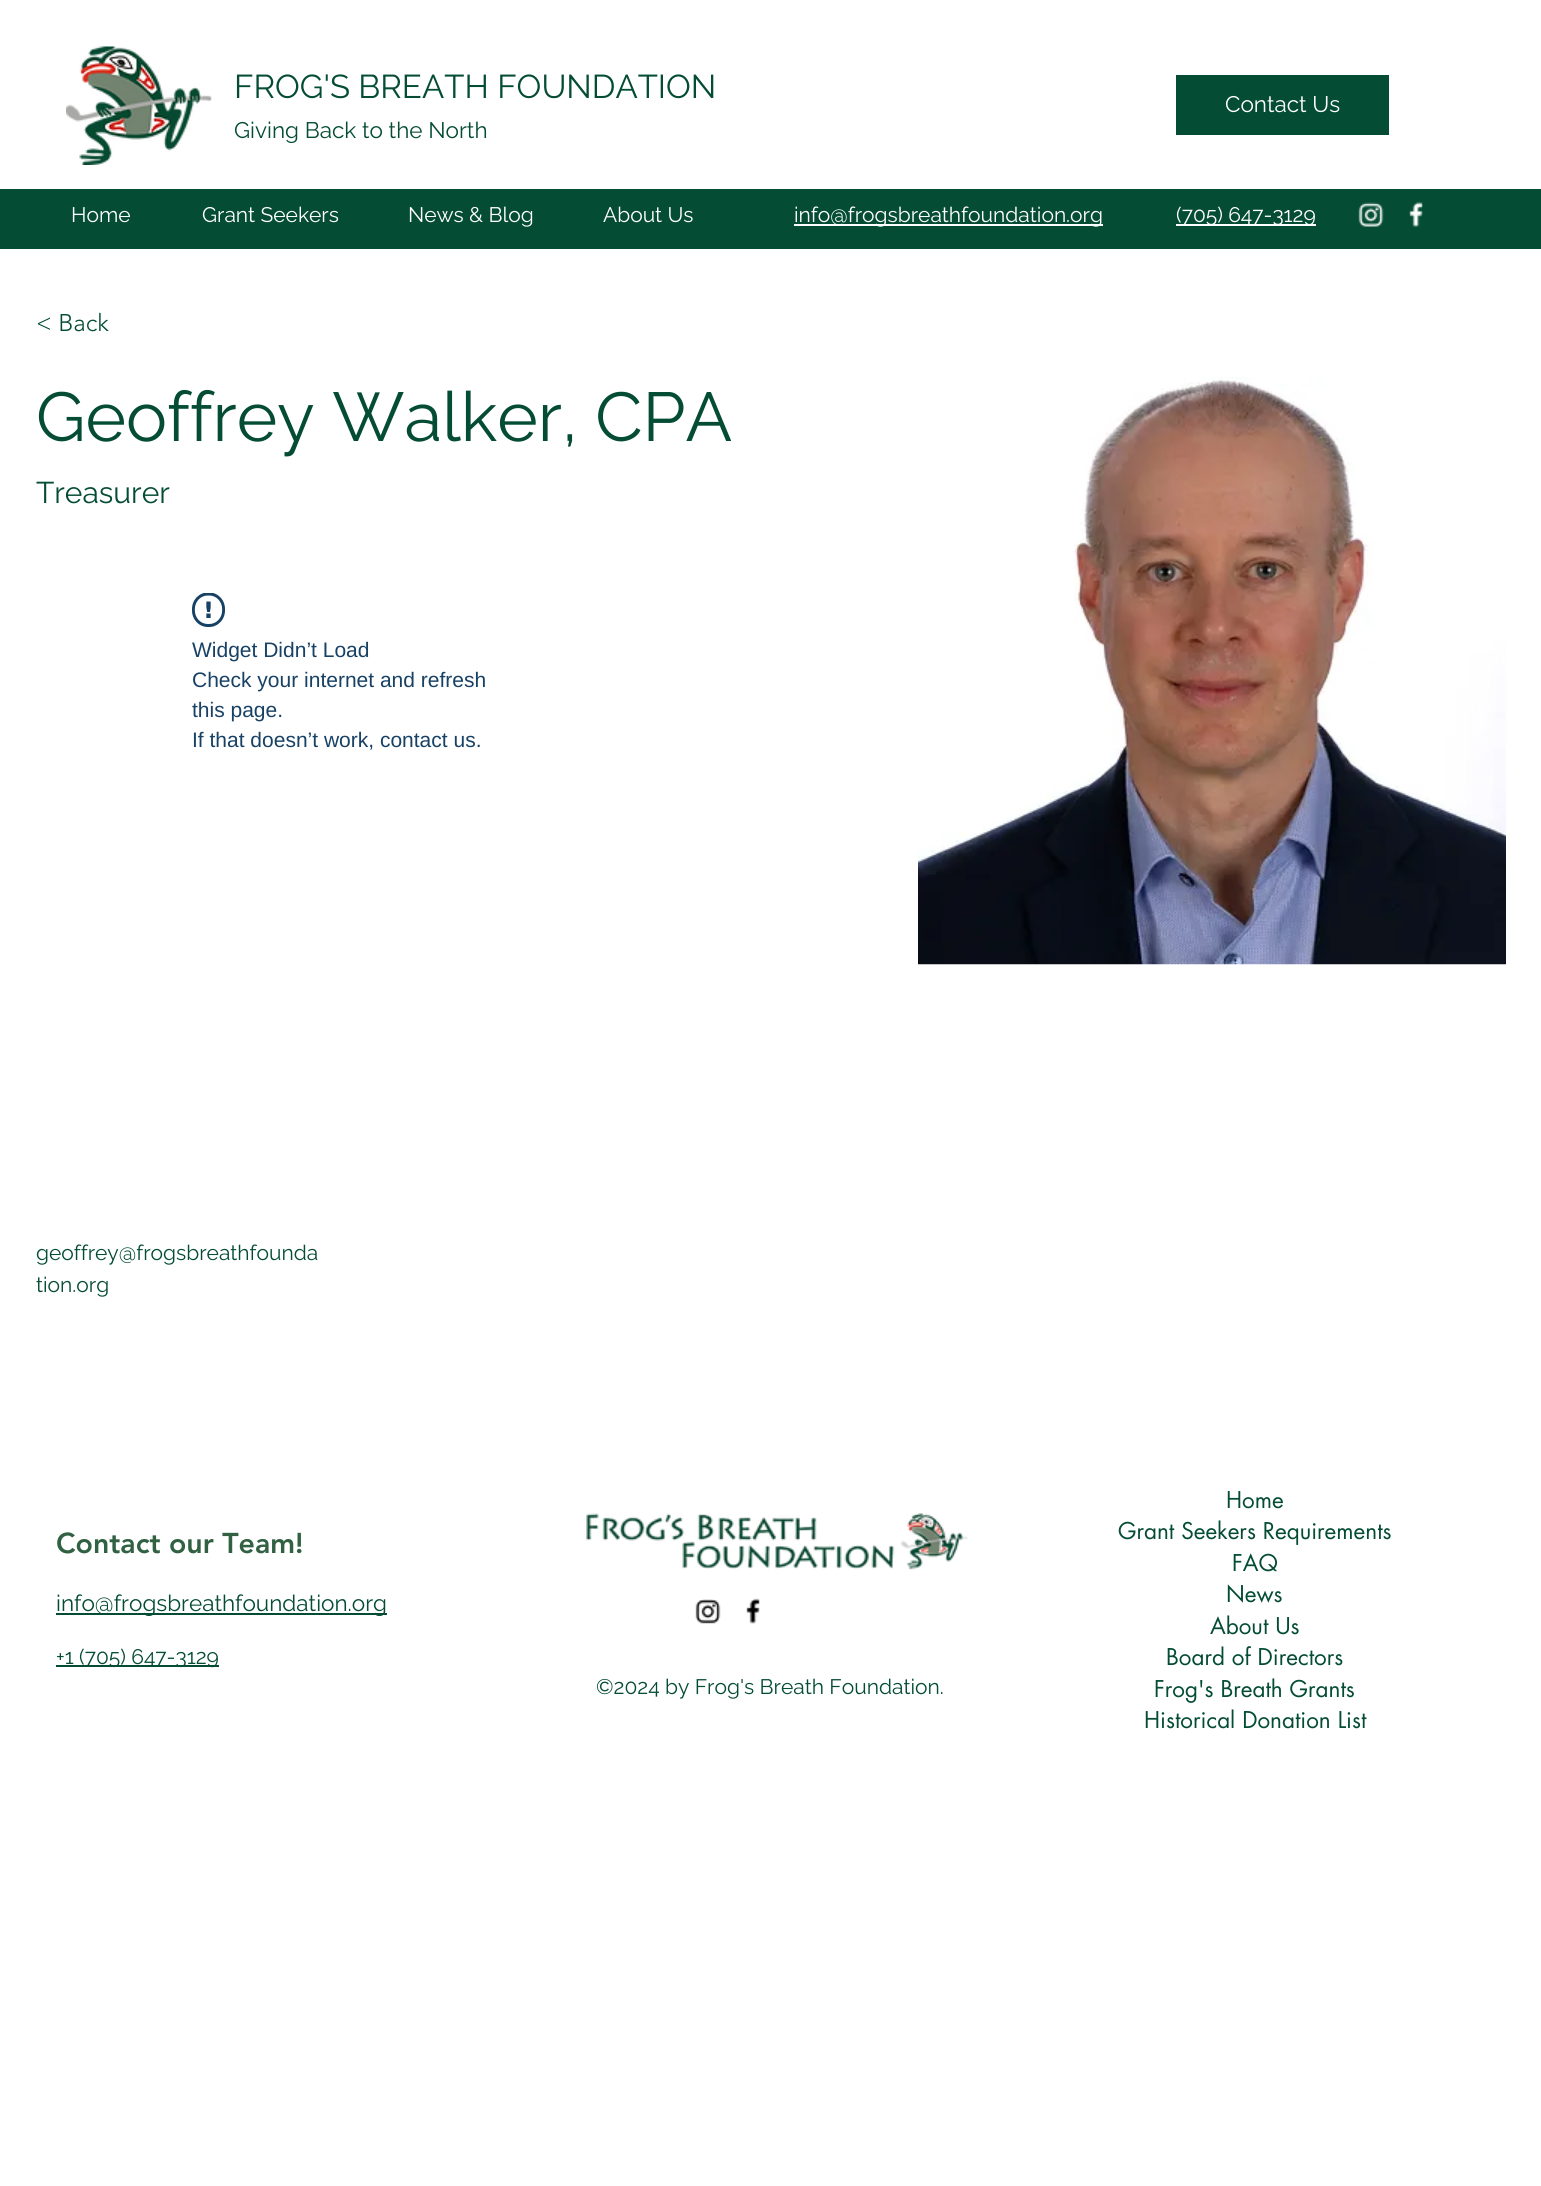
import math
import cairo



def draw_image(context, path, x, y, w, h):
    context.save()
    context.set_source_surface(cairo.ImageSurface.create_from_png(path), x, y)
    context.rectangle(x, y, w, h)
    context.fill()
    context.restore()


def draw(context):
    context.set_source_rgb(1, 1, 1)
    context.paint()
    draw_image(context, "images/1.png", 66, 46, 146, 119)
    context.set_source_rgb(4 / 255, 76 / 255, 52 / 255)
    context.rectangle(1176, 75, 213, 60)
    context.fill()
    context.rectangle(0, 189, 1541, 60)
    context.fill()
    context.set_source_rgb(1, 1, 1)
    context.rectangle(794, 224, 309, 2)
    context.fill()
    context.rectangle(1176, 224, 140, 2)
    context.fill()
    draw_image(context, "images/2.png", 1358, 202, 26, 25)
    draw_image(context, "images/3.png", 1409, 202, 14, 25)
    draw_image(context, "images/4.png", 192, 593, 33, 34)
    draw_image(context, "images/5.png", 918, 377, 588, 588)
    draw_image(context, "images/6.png", 586, 1513, 382, 57)
    context.set_source_rgb(4 / 255, 76 / 255, 52 / 255)
    context.rectangle(56, 1613, 331, 2)
    context.fill()
    draw_image(context, "images/7.png", 695, 1599, 26, 25)
    draw_image(context, "images/8.png", 746, 1598, 14, 26)
    context.rectangle(56, 1665, 163, 2)
    context.fill()
    context.select_font_face("Raleway")
    context.set_font_size(33)
    context.move_to(234, 98)
    context.show_text("FROG'S BREATH FOUNDATION")
    context.set_font_size(22.5)
    context.move_to(234, 138)
    context.show_text("Giving Back to the North")
    context.set_source_rgb(1, 1, 1)
    context.move_to(1225, 112)
    context.show_text("Contact Us")
    context.set_font_size(21)
    context.move_to(71, 222)
    context.show_text("Home")
    context.move_to(202, 222)
    context.show_text("Grant Seekers")
    context.move_to(408, 222)
    context.show_text("News & Blog")
    context.move_to(603, 222)
    context.show_text("About Us")
    context.move_to(794, 222)
    context.show_text("info@frogsbreathfoundation.org")
    context.move_to(1176, 222)
    context.show_text("(705) 647-3129")
    context.select_font_face("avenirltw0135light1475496 Light")
    context.set_font_size(24)
    context.set_source_rgb(4 / 255, 76 / 255, 52 / 255)
    context.move_to(36, 331)
    context.show_text("< Back")
    context.select_font_face("Raleway")
    context.set_font_size(69)
    context.move_to(36, 441)
    context.show_text("Geoffrey Walker, CPA")
    context.set_font_size(30)
    context.move_to(36, 503)
    context.show_text("Treasurer")
    context.select_font_face("Liberation Sans")
    context.set_font_size(21)
    context.set_source_rgb(23 / 255, 65 / 255, 101 / 255)
    context.move_to(192, 657)
    context.show_text("Widget Didn’t Load")
    context.move_to(192, 687)
    context.show_text("Check your internet and refresh")
    context.move_to(192, 717)
    context.show_text("this page.")
    context.move_to(192, 747)
    context.show_text("If that doesn’t work, contact us.")
    context.select_font_face("Raleway")
    context.set_source_rgb(4 / 255, 76 / 255, 52 / 255)
    context.move_to(36, 1260)
    context.show_text("geoffrey@frogsbreathfounda")
    context.move_to(36, 1292)
    context.show_text("tion.org")
    context.select_font_face("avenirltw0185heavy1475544 Black")
    context.set_font_size(28.5)
    context.set_source_rgb(49 / 255, 97 / 255, 66 / 255)
    context.move_to(56, 1553)
    context.show_text("Contact our Team!")
    context.select_font_face("futura")
    context.set_font_size(22.5)
    context.set_source_rgb(4 / 255, 76 / 255, 52 / 255)
    context.move_to(1226, 1508)
    context.show_text("Home")
    context.move_to(1118, 1539)
    context.show_text("Grant Seekers Requirements")
    context.move_to(1232, 1571)
    context.show_text("FAQ")
    context.move_to(1226, 1602)
    context.show_text("News")
    context.move_to(1210, 1634)
    context.show_text("About Us")
    context.move_to(1166, 1665)
    context.show_text("Board of Directors")
    context.move_to(1154, 1697)
    context.show_text("Frog's Breath Grants")
    context.move_to(1144, 1728)
    context.show_text("Historical Donation List")
    context.select_font_face("Raleway")
    context.move_to(56, 1611)
    context.show_text("info@frogsbreathfoundation.org")
    context.set_font_size(21)
    context.move_to(56, 1664)
    context.show_text("+1 (705) 647-3129")
    context.move_to(596, 1694)
    context.show_text("©2024 by Frog's Breath Foundation.")


surface = cairo.ImageSurface(cairo.Format.RGB24, 1541, 2186)
context = cairo.Context(surface)
options = cairo.FontOptions()
options.set_hint_metrics(cairo.HintMetrics.OFF)
options.set_hint_style(cairo.HintStyle.NONE)
context.set_font_options(options)
context.set_miter_limit(4)
draw(context)
surface.write_to_png("out.png")
